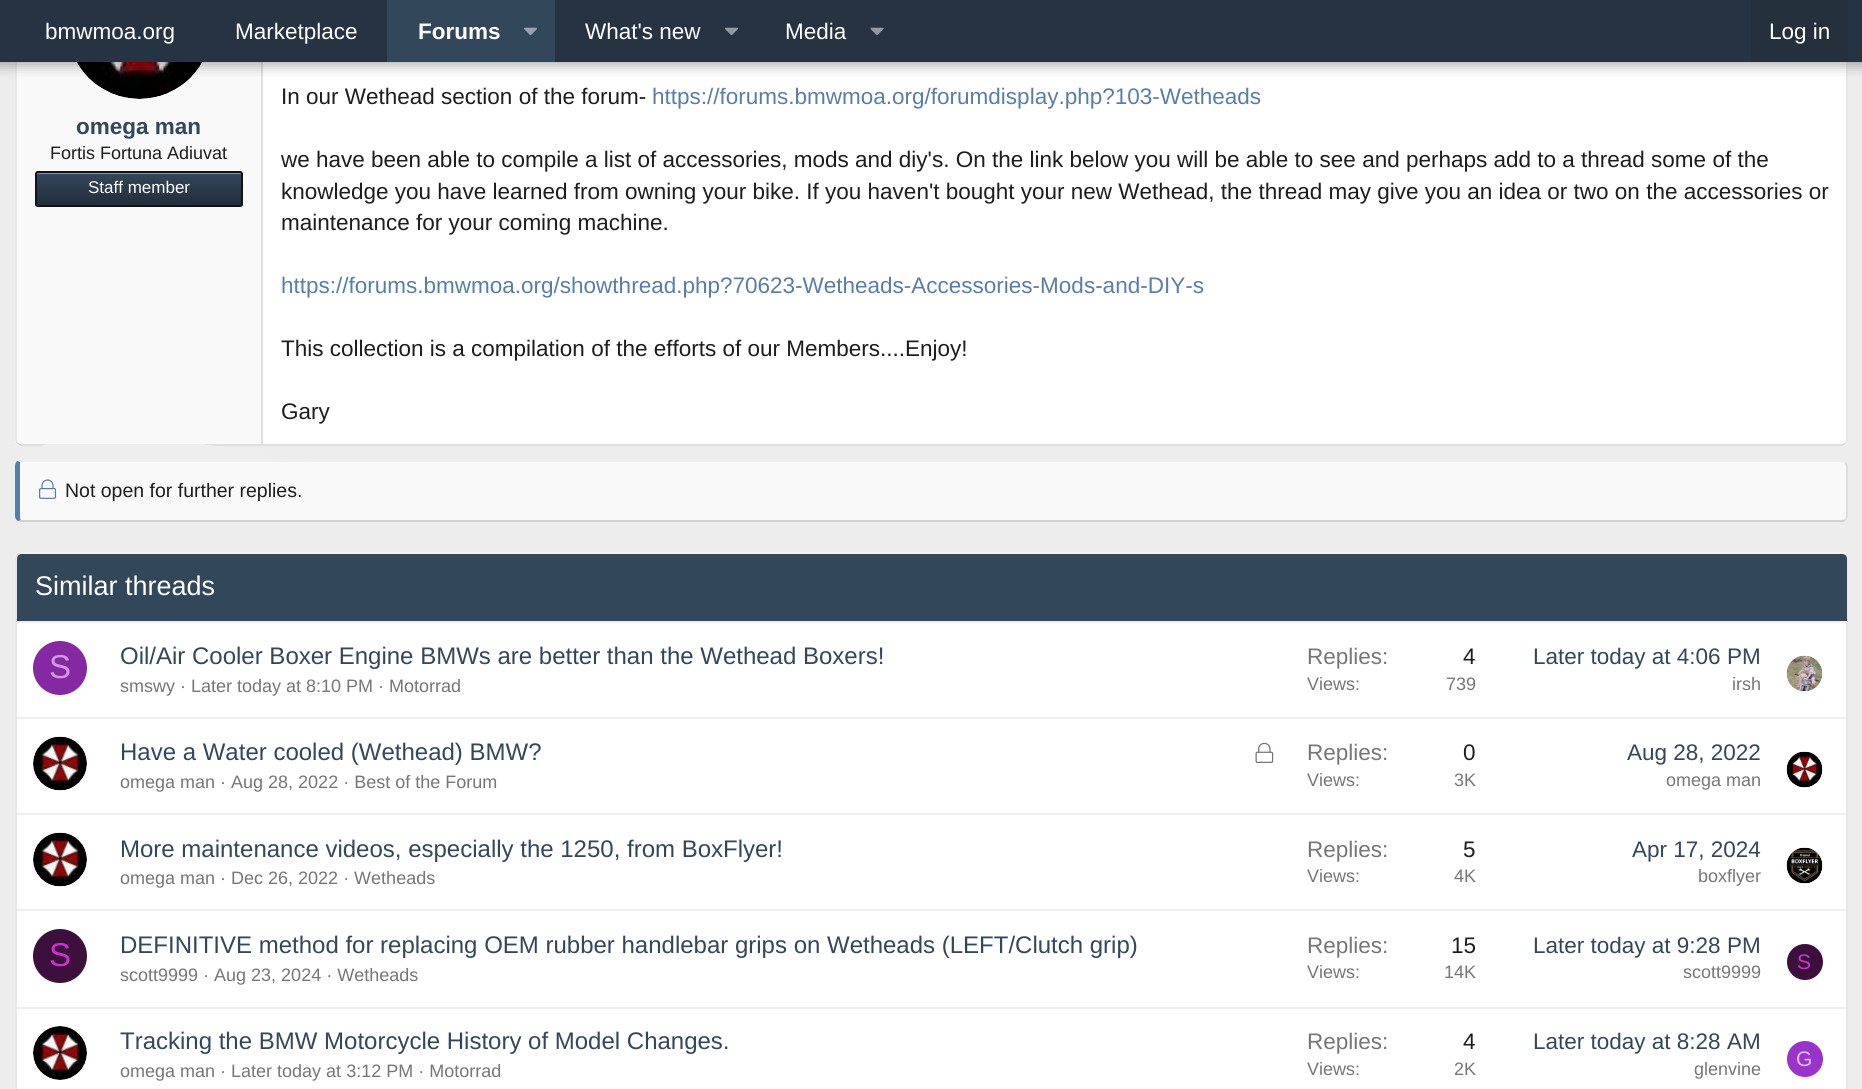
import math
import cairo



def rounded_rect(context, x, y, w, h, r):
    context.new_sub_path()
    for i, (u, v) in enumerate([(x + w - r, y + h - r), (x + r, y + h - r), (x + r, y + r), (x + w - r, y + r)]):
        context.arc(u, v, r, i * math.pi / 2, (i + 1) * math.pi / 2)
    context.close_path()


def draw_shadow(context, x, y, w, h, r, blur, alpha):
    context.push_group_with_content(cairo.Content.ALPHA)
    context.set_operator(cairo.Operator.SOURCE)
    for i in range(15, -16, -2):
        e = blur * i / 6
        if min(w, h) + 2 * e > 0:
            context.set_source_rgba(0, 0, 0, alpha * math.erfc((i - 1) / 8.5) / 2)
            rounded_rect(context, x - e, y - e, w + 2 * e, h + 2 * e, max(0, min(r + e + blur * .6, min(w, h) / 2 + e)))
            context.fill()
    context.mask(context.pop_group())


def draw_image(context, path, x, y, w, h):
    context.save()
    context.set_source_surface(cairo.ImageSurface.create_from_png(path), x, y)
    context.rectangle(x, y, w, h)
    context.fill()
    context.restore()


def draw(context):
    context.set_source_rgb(237 / 255, 237 / 255, 237 / 255)
    context.paint()
    context.set_source_rgb(1, 1, 1)
    rounded_rect(context, 15, -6, 1833, 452, 6)
    context.fill()
    context.new_path()
    context.move_to(1845.5, -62)
    context.curve_to(1846.5, -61, 1847, -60, 1847, -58.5)
    context.line_to(1847, 439.5)
    context.curve_to(1847, 441, 1846.5, 442, 1845.5, 443)
    context.set_source_rgb(223 / 255, 223 / 255, 223 / 255)
    context.set_line_width(1.5)
    context.stroke()
    context.new_path()
    context.move_to(1845.5, 443)
    context.curve_to(1844.5, 444, 1843.5, 445, 1842, 445)
    context.line_to(21, 445)
    context.curve_to(19.5, 445, 18.5, 444, 17.5, 443)
    context.set_source_rgb(210 / 255, 210 / 255, 210 / 255)
    context.stroke()
    context.new_path()
    context.move_to(17.5, 443)
    context.curve_to(16.5, 442, 16, 441, 16, 439.5)
    context.line_to(16, -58.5)
    context.curve_to(16, -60, 16.5, -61, 17.5, -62)
    context.set_source_rgb(223 / 255, 223 / 255, 223 / 255)
    context.stroke()
    context.set_source_rgb(249 / 255, 249 / 255, 249 / 255)
    context.new_path()
    context.move_to(21, 462)
    context.line_to(1842, 462)
    context.curve_to(1844, 462, 1846, 464, 1846, 466)
    context.line_to(1846, 516)
    context.curve_to(1846, 518, 1844, 520, 1842, 520)
    context.line_to(21, 520)
    context.curve_to(20, 520, 20, 518, 20, 516)
    context.line_to(20, 466)
    context.curve_to(20, 464, 20, 462, 21, 462)
    context.close_path()
    context.fill()
    context.set_source_rgb(238 / 255, 238 / 255, 238 / 255)
    context.new_path()
    context.move_to(21, 462)
    context.line_to(20, 462)
    context.line_to(17, 461)
    context.curve_to(97, 398, 221, 460, 323, 460)
    context.line_to(1844, 460)
    context.line_to(1846, 462)
    context.line_to(1845, 464)
    context.curve_to(1844, 463, 1843, 462, 1842, 462)
    context.close_path()
    context.fill()
    context.set_source_rgb(249 / 255, 249 / 255, 249 / 255)
    context.new_path()
    context.move_to(22, -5)
    context.line_to(263, -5)
    context.line_to(263, 444)
    context.line_to(22, 444)
    context.curve_to(19, 444, 17, 442, 17, 439)
    context.line_to(17, 0)
    context.curve_to(17, -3, 19, -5, 22, -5)
    context.close_path()
    context.fill()
    context.set_source_rgb(223 / 255, 223 / 255, 223 / 255)
    context.rectangle(261, 62, 2, 382)
    context.fill()
    context.set_source_rgb(1, 1, 1)
    context.arc(140, 27, 72, 0, 2 * math.pi)
    context.fill()
    draw_image(context, "images/4.png", 77, 62, 125, 37)
    context.set_source_rgb(0, 0, 0)
    draw_shadow(context, -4, -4, 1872, 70, 0, 6, 0.3)
    context.set_source_rgb(37 / 255, 51 / 255, 66 / 255)
    context.rectangle(0, 0, 1862, 62)
    context.fill()
    context.set_source_rgb(51 / 255, 71 / 255, 91 / 255)
    context.rectangle(387, 0, 168, 62)
    context.fill()
    draw_image(context, "images/1.png", 524, 27, 13, 9)
    draw_image(context, "images/2.png", 725, 27, 13, 9)
    draw_image(context, "images/3.png", 870, 27, 14, 9)
    context.set_source_rgb(36 / 255, 48 / 255, 60 / 255)
    context.rectangle(1751, 0, 97, 62)
    context.fill()
    context.save()
    rounded_rect(context, 35, 171, 208, 36, 3)
    context.clip()
    gradient = cairo.LinearGradient(139, 172, 139, 206)
    gradient.add_color_stop_rgba(0, 51 / 255, 71 / 255, 91 / 255, 1)
    gradient.add_color_stop_rgba(1, 33 / 255, 45 / 255, 58 / 255, 1)
    context.set_source(gradient)
    context.rectangle(35, 173, 208, 33)
    context.fill()
    context.restore()
    context.set_source_rgb(117 / 255, 147 / 255, 178 / 255)
    context.new_path()
    context.move_to(38, 174)
    context.line_to(240, 174)
    context.line_to(242, 175)
    context.line_to(242, 176)
    context.line_to(242, 174)
    context.curve_to(242, 174, 241, 173, 240, 173)
    context.line_to(38, 173)
    context.curve_to(37, 173, 36, 174, 36, 174)
    context.line_to(36, 176)
    context.curve_to(36, 175, 37, 174, 38, 174)
    context.close_path()
    context.fill()
    rounded_rect(context, 36, 172, 206, 34, 2)
    context.set_source_rgb(14 / 255, 20 / 255, 26 / 255)
    context.set_line_width(2)
    context.stroke()
    context.set_source_rgb(223 / 255, 223 / 255, 223 / 255)
    context.new_path()
    context.move_to(1848, 516)
    context.line_to(1848, 466)
    context.curve_to(1848, 465, 1847, 463, 1846, 462)
    context.line_to(1845, 464)
    context.line_to(1846, 466)
    context.line_to(1846, 516)
    context.line_to(1845, 519)
    context.line_to(1846, 520)
    context.curve_to(1847, 519, 1848, 518, 1848, 516)
    context.close_path()
    context.fill()
    context.set_source_rgb(210 / 255, 210 / 255, 210 / 255)
    context.new_path()
    context.move_to(21, 522)
    context.line_to(1842, 522)
    context.curve_to(1844, 522, 1845, 521, 1846, 520)
    context.line_to(1845, 519)
    context.curve_to(1844, 520, 1843, 520, 1842, 520)
    context.line_to(21, 520)
    context.line_to(18, 521)
    context.close_path()
    context.fill()
    context.set_source_rgb(89 / 255, 126 / 255, 165 / 255)
    context.new_path()
    context.move_to(15, 466)
    context.line_to(15, 516)
    context.curve_to(15, 518, 16, 520, 18, 521)
    context.line_to(21, 520)
    context.curve_to(20, 520, 20, 518, 20, 516)
    context.line_to(20, 466)
    context.curve_to(20, 464, 20, 463, 20, 462)
    context.line_to(17, 461)
    context.curve_to(16, 462, 15, 464, 15, 466)
    context.close_path()
    context.fill()
    draw_image(context, "images/5.png", 39, 479, 18, 20)
    context.set_source_rgb(1, 1, 1)
    rounded_rect(context, 15, 552, 1833, 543, 6)
    context.fill()
    context.new_path()
    context.move_to(17.5, 554.5)
    context.curve_to(18.5, 553.5, 19.5, 553, 21, 553)
    context.line_to(1842, 553)
    context.curve_to(1843.5, 553, 1844.5, 553.5, 1845.5, 554.5)
    context.set_source_rgb(238 / 255, 238 / 255, 238 / 255)
    context.set_line_width(1.5)
    context.stroke()
    context.new_path()
    context.move_to(1845.5, 554.5)
    context.curve_to(1846.5, 555.5, 1847, 556.5, 1847, 558)
    context.line_to(1847, 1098)
    context.curve_to(1847, 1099.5, 1846.5, 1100.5, 1845.5, 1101.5)
    context.set_source_rgb(223 / 255, 223 / 255, 223 / 255)
    context.stroke()
    context.new_path()
    context.move_to(17.5, 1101.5)
    context.curve_to(16.5, 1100.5, 16, 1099.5, 16, 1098)
    context.line_to(16, 558)
    context.curve_to(16, 556.5, 16.5, 555.5, 17.5, 554.5)
    context.stroke()
    context.set_source_rgb(51 / 255, 71 / 255, 91 / 255)
    context.new_path()
    context.move_to(22, 554)
    context.line_to(1842, 554)
    context.curve_to(1845, 554, 1847, 556, 1847, 559)
    context.line_to(1847, 623)
    context.line_to(17, 623)
    context.line_to(17, 559)
    context.curve_to(17, 556, 19, 554, 22, 554)
    context.close_path()
    context.fill()
    context.set_source_rgb(238 / 255, 238 / 255, 238 / 255)
    context.rectangle(17, 621, 1830, 2)
    context.fill()
    context.set_source_rgb(133 / 255, 41 / 255, 163 / 255)
    context.arc(60, 668, 27, 0, 2 * math.pi)
    context.fill()
    draw_image(context, "images/6.png", 1786, 655, 37, 37)
    context.set_source_rgb(238 / 255, 238 / 255, 238 / 255)
    context.rectangle(17, 717, 1830, 2)
    context.fill()
    draw_image(context, "images/7.png", 33, 736, 54, 55)
    draw_image(context, "images/8.png", 1255, 742, 19, 21)
    draw_image(context, "images/9.png", 1786, 751, 37, 37)
    context.rectangle(17, 813, 1830, 2)
    context.fill()
    draw_image(context, "images/7.png", 33, 832, 54, 55)
    draw_image(context, "images/10.png", 1786, 847, 37, 37)
    context.rectangle(17, 909, 1830, 2)
    context.fill()
    context.set_source_rgb(61 / 255, 15 / 255, 61 / 255)
    context.arc(60, 956, 27, 0, 2 * math.pi)
    context.fill()
    context.arc(1805, 962, 18, 0, 2 * math.pi)
    context.fill()
    context.set_source_rgb(238 / 255, 238 / 255, 238 / 255)
    context.rectangle(17, 1007, 1830, 2)
    context.fill()
    draw_image(context, "images/11.png", 33, 1026, 54, 54)
    context.set_source_rgb(153 / 255, 51 / 255, 204 / 255)
    context.arc(1805, 1059, 18, 0, 2 * math.pi)
    context.fill()
    context.select_font_face("Liberation Sans")
    context.set_font_size(22.5)
    context.set_source_rgb(1, 1, 1)
    context.move_to(45, 39)
    context.show_text("bmwmoa.org")
    context.move_to(235, 39)
    context.show_text("Marketplace")
    context.select_font_face("Liberation Sans", cairo.FontSlant.NORMAL, cairo.FontWeight.BOLD)
    context.move_to(418, 39)
    context.show_text("Forums")
    context.select_font_face("Liberation Sans")
    context.move_to(585, 39)
    context.show_text("What's new")
    context.move_to(785, 39)
    context.show_text("Media")
    context.move_to(1769, 39)
    context.show_text("Log in")
    context.select_font_face("Liberation Sans", cairo.FontSlant.NORMAL, cairo.FontWeight.BOLD)
    context.set_source_rgb(51 / 255, 71 / 255, 91 / 255)
    context.move_to(76, 134)
    context.show_text("omega man")
    context.select_font_face("Liberation Sans")
    context.set_font_size(18)
    context.set_source_rgb(29 / 255, 29 / 255, 29 / 255)
    context.move_to(50, 159)
    context.show_text("Fortis Fortuna Adiuvat")
    context.set_font_size(17)
    context.set_source_rgb(1, 1, 1)
    context.move_to(88, 193)
    context.show_text("Staff member")
    context.set_font_size(22.5)
    context.set_source_rgb(29 / 255, 29 / 255, 29 / 255)
    context.move_to(281, 104)
    context.show_text("In our Wethead section of the forum-")
    context.set_source_rgb(89 / 255, 126 / 255, 165 / 255)
    context.move_to(652, 104)
    context.show_text("https://forums.bmwmoa.org/forumdisplay.php?103-Wetheads")
    context.set_source_rgb(29 / 255, 29 / 255, 29 / 255)
    context.move_to(281, 167)
    context.show_text("we have been able to compile a list of accessories, mods and diy's. On the link below you will be able to see and perhaps add to a thread some of the")
    context.move_to(281, 199)
    context.show_text("knowledge you have learned from owning your bike. If you haven't bought your new Wethead, the thread may give you an idea or two on the accessories or")
    context.move_to(281, 230)
    context.show_text("maintenance for your coming machine.")
    context.set_source_rgb(89 / 255, 126 / 255, 165 / 255)
    context.move_to(281, 293)
    context.show_text("https://forums.bmwmoa.org/showthread.php?70623-Wetheads-Accessories-Mods-and-DIY-s")
    context.set_source_rgb(29 / 255, 29 / 255, 29 / 255)
    context.move_to(281, 356)
    context.show_text("This collection is a compilation of the efforts of our Members....Enjoy!")
    context.move_to(281, 419)
    context.show_text("Gary")
    context.set_font_size(19.5)
    context.move_to(65, 497)
    context.show_text("Not open for further replies.")
    context.set_font_size(27)
    context.set_source_rgb(1, 1, 1)
    context.move_to(35, 595)
    context.show_text("Similar threads")
    context.set_font_size(33)
    context.set_source_rgb(210 / 255, 153 / 255, 230 / 255)
    context.move_to(49, 678)
    context.show_text("S")
    context.set_font_size(24)
    context.set_source_rgb(51 / 255, 71 / 255, 91 / 255)
    context.move_to(120, 664)
    context.show_text("Oil/Air Cooler Boxer Engine BMWs are better than the Wethead Boxers!")
    context.set_font_size(18)
    context.set_source_rgb(118 / 255, 118 / 255, 118 / 255)
    context.move_to(120, 692)
    context.show_text("smswy · Later today at 8:10 PM · Motorrad")
    context.set_font_size(22.5)
    context.move_to(1307, 664)
    context.show_text("Replies:")
    context.set_source_rgb(29 / 255, 29 / 255, 29 / 255)
    context.move_to(1463, 664)
    context.show_text("4")
    context.set_font_size(18)
    context.set_source_rgb(118 / 255, 118 / 255, 118 / 255)
    context.move_to(1307, 690)
    context.show_text("Views:")
    context.move_to(1446, 690)
    context.show_text("739")
    context.set_font_size(22.5)
    context.set_source_rgb(51 / 255, 71 / 255, 91 / 255)
    context.move_to(1533, 664)
    context.show_text("Later today at 4:06 PM")
    context.set_font_size(18)
    context.set_source_rgb(118 / 255, 118 / 255, 118 / 255)
    context.move_to(1732, 690)
    context.show_text("irsh")
    context.set_font_size(24)
    context.set_source_rgb(51 / 255, 71 / 255, 91 / 255)
    context.move_to(120, 760)
    context.show_text("Have a Water cooled (Wethead) BMW?")
    context.set_font_size(18)
    context.set_source_rgb(118 / 255, 118 / 255, 118 / 255)
    context.move_to(120, 788)
    context.show_text("omega man · Aug 28, 2022 · Best of the Forum")
    context.set_font_size(22.5)
    context.move_to(1307, 760)
    context.show_text("Replies:")
    context.set_source_rgb(29 / 255, 29 / 255, 29 / 255)
    context.move_to(1463, 760)
    context.show_text("0")
    context.set_font_size(18)
    context.set_source_rgb(118 / 255, 118 / 255, 118 / 255)
    context.move_to(1307, 786)
    context.show_text("Views:")
    context.move_to(1454, 786)
    context.show_text("3K")
    context.set_font_size(22.5)
    context.set_source_rgb(51 / 255, 71 / 255, 91 / 255)
    context.move_to(1627, 760)
    context.show_text("Aug 28, 2022")
    context.set_font_size(18)
    context.set_source_rgb(118 / 255, 118 / 255, 118 / 255)
    context.move_to(1666, 786)
    context.show_text("omega man")
    context.set_font_size(24)
    context.set_source_rgb(51 / 255, 71 / 255, 91 / 255)
    context.move_to(120, 857)
    context.show_text("More maintenance videos, especially the 1250, from BoxFlyer!")
    context.set_font_size(18)
    context.set_source_rgb(118 / 255, 118 / 255, 118 / 255)
    context.move_to(120, 884)
    context.show_text("omega man · Dec 26, 2022 · Wetheads")
    context.set_font_size(22.5)
    context.move_to(1307, 857)
    context.show_text("Replies:")
    context.set_source_rgb(29 / 255, 29 / 255, 29 / 255)
    context.move_to(1463, 857)
    context.show_text("5")
    context.set_font_size(18)
    context.set_source_rgb(118 / 255, 118 / 255, 118 / 255)
    context.move_to(1307, 882)
    context.show_text("Views:")
    context.move_to(1454, 882)
    context.show_text("4K")
    context.set_font_size(22.5)
    context.set_source_rgb(51 / 255, 71 / 255, 91 / 255)
    context.move_to(1632, 857)
    context.show_text("Apr 17, 2024")
    context.set_font_size(18)
    context.set_source_rgb(118 / 255, 118 / 255, 118 / 255)
    context.move_to(1698, 882)
    context.show_text("boxflyer")
    context.set_font_size(33)
    context.set_source_rgb(204 / 255, 51 / 255, 204 / 255)
    context.move_to(49, 966)
    context.show_text("S")
    context.set_font_size(24)
    context.set_source_rgb(51 / 255, 71 / 255, 91 / 255)
    context.move_to(120, 953)
    context.show_text("DEFINITIVE method for replacing OEM rubber handlebar grips on Wetheads (LEFT/Clutch grip)")
    context.set_font_size(18)
    context.set_source_rgb(118 / 255, 118 / 255, 118 / 255)
    context.move_to(120, 981)
    context.show_text("scott9999 · Aug 23, 2024 · Wetheads")
    context.set_font_size(22.5)
    context.move_to(1307, 953)
    context.show_text("Replies:")
    context.set_source_rgb(29 / 255, 29 / 255, 29 / 255)
    context.move_to(1451, 953)
    context.show_text("15")
    context.set_font_size(18)
    context.set_source_rgb(118 / 255, 118 / 255, 118 / 255)
    context.move_to(1307, 978)
    context.show_text("Views:")
    context.move_to(1444, 978)
    context.show_text("14K")
    context.set_font_size(22.5)
    context.set_source_rgb(51 / 255, 71 / 255, 91 / 255)
    context.move_to(1533, 953)
    context.show_text("Later today at 9:28 PM")
    context.set_font_size(18)
    context.set_source_rgb(118 / 255, 118 / 255, 118 / 255)
    context.move_to(1683, 978)
    context.show_text("scott9999")
    context.set_font_size(21)
    context.set_source_rgb(204 / 255, 51 / 255, 204 / 255)
    context.move_to(1797, 969)
    context.show_text("S")
    context.set_font_size(24)
    context.set_source_rgb(51 / 255, 71 / 255, 91 / 255)
    context.move_to(120, 1049)
    context.show_text("Tracking the BMW Motorcycle History of Model Changes.")
    context.set_font_size(18)
    context.set_source_rgb(118 / 255, 118 / 255, 118 / 255)
    context.move_to(120, 1077)
    context.show_text("omega man · Later today at 3:12 PM · Motorrad")
    context.set_font_size(22.5)
    context.move_to(1307, 1049)
    context.show_text("Replies:")
    context.set_source_rgb(29 / 255, 29 / 255, 29 / 255)
    context.move_to(1463, 1049)
    context.show_text("4")
    context.set_font_size(18)
    context.set_source_rgb(118 / 255, 118 / 255, 118 / 255)
    context.move_to(1307, 1075)
    context.show_text("Views:")
    context.move_to(1454, 1075)
    context.show_text("2K")
    context.set_font_size(22.5)
    context.set_source_rgb(51 / 255, 71 / 255, 91 / 255)
    context.move_to(1533, 1049)
    context.show_text("Later today at 8:28 AM")
    context.set_font_size(18)
    context.set_source_rgb(118 / 255, 118 / 255, 118 / 255)
    context.move_to(1694, 1075)
    context.show_text("glenvine")
    context.set_font_size(21)
    context.set_source_rgb(224 / 255, 194 / 255, 240 / 255)
    context.move_to(1796, 1066)
    context.show_text("G")


surface = cairo.ImageSurface(cairo.Format.RGB24, 1862, 1089)
context = cairo.Context(surface)
options = cairo.FontOptions()
options.set_hint_metrics(cairo.HintMetrics.OFF)
options.set_hint_style(cairo.HintStyle.NONE)
context.set_font_options(options)
context.set_miter_limit(4)
draw(context)
surface.write_to_png("out.png")
